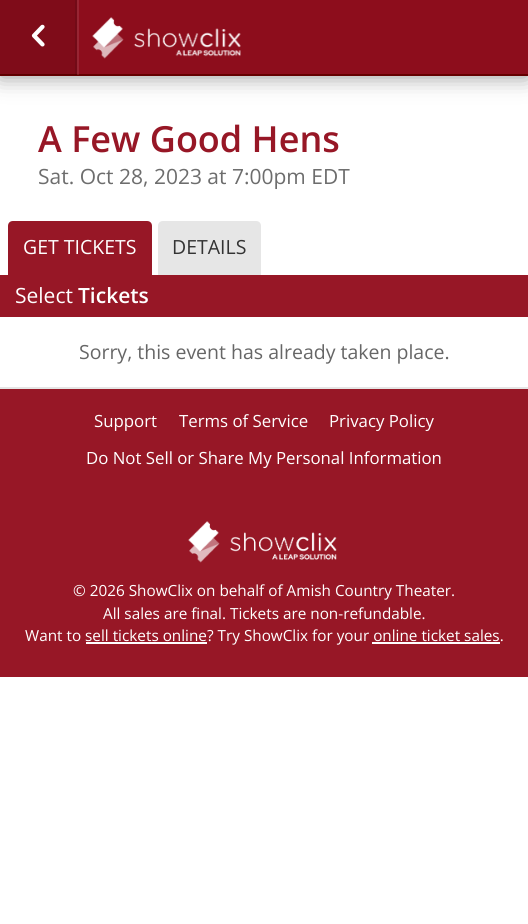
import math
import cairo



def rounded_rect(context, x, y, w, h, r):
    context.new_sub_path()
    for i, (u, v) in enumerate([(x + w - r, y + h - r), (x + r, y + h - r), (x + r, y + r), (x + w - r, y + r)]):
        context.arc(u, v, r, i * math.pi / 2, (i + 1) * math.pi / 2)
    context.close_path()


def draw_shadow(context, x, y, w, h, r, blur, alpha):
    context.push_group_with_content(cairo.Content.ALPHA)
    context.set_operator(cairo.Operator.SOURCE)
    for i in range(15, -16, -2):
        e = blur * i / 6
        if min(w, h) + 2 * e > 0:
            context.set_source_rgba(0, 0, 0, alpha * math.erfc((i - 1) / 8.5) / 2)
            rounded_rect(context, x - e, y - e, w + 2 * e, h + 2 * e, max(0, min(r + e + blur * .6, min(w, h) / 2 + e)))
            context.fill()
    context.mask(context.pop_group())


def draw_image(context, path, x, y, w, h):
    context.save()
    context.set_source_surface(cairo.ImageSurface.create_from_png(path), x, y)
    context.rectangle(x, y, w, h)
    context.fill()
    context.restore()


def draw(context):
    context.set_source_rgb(1, 1, 1)
    context.paint()
    context.set_source_rgb(0, 0, 0)
    draw_shadow(context, 0, 2, 528, 75, 0, 11, 0.4)
    context.set_source_rgb(141 / 255, 13 / 255, 28 / 255)
    context.rectangle(79, 0, 449, 74)
    context.fill()
    context.set_source_rgb(127 / 255, 12 / 255, 25 / 255)
    context.rectangle(0, 0, 75, 74)
    context.fill()
    context.set_source_rgb(114 / 255, 11 / 255, 23 / 255)
    context.rectangle(75, 0, 2, 75)
    context.fill()
    context.set_source_rgb(152 / 255, 37 / 255, 51 / 255)
    context.rectangle(77, 0, 2, 75)
    context.fill()
    context.set_source_rgb(101 / 255, 0, 0)
    context.rectangle(0, 74, 528, 2)
    context.fill()
    context.set_source_rgb(91 / 255, 0, 0)
    context.rectangle(0, 74, 77, 1)
    context.fill()
    context.set_source_rgb(82 / 255, 0, 0)
    context.rectangle(75, 74, 2, 1)
    context.fill()
    context.set_source_rgb(116 / 255, 26 / 255, 26 / 255)
    context.rectangle(77, 74, 2, 1)
    context.fill()
    draw_image(context, "images/1.png", 31, 24, 14, 23)
    draw_image(context, "images/2.png", 92, 17, 149, 42)
    context.set_source_rgb(151 / 255, 23 / 255, 38 / 255)
    context.new_path()
    context.move_to(13, 221)
    context.line_to(147, 221)
    context.curve_to(150, 221, 152, 223, 152, 226)
    context.line_to(152, 275)
    context.line_to(8, 275)
    context.line_to(8, 226)
    context.curve_to(8, 223, 10, 221, 13, 221)
    context.close_path()
    context.fill()
    context.set_source_rgb(230 / 255, 230 / 255, 230 / 255)
    context.new_path()
    context.move_to(163, 221)
    context.line_to(256, 221)
    context.curve_to(259, 221, 261, 223, 261, 226)
    context.line_to(261, 275)
    context.line_to(158, 275)
    context.line_to(158, 226)
    context.curve_to(158, 223, 160, 221, 163, 221)
    context.close_path()
    context.fill()
    context.set_source_rgb(151 / 255, 23 / 255, 38 / 255)
    context.rectangle(0, 275, 528, 42)
    context.fill()
    context.set_source_rgb(229 / 255, 229 / 255, 229 / 255)
    context.rectangle(0, 387, 528, 2)
    context.fill()
    context.set_source_rgb(151 / 255, 23 / 255, 38 / 255)
    context.rectangle(0, 389, 528, 288)
    context.fill()
    draw_image(context, "images/3.png", 188, 521, 149, 42)
    context.set_source_rgb(1, 1, 1)
    context.rectangle(86, 642, 121, 2)
    context.fill()
    context.rectangle(372, 642, 128, 2)
    context.fill()
    context.select_font_face("Open Sans SemiBold")
    context.set_font_size(36)
    context.set_source_rgb(151 / 255, 23 / 255, 38 / 255)
    context.move_to(38, 152)
    context.show_text("A Few Good Hens")
    context.select_font_face("Open Sans")
    context.set_font_size(21)
    context.set_source_rgb(109 / 255, 109 / 255, 109 / 255)
    context.move_to(38, 184)
    context.show_text("Sat. Oct 28, 2023 at 7:00pm EDT")
    context.set_font_size(19.5)
    context.set_source_rgb(1, 1, 1)
    context.move_to(23, 254)
    context.show_text("GET TICKETS")
    context.set_source_rgb(51 / 255, 51 / 255, 51 / 255)
    context.move_to(172, 254)
    context.show_text("DETAILS")
    context.set_font_size(21)
    context.set_source_rgb(1, 1, 1)
    context.move_to(15, 303)
    context.show_text("Select")
    context.select_font_face("Open Sans SemiBold")
    context.move_to(78, 303)
    context.show_text("Tickets")
    context.select_font_face("Open Sans")
    context.set_font_size(19.5)
    context.set_source_rgb(102 / 255, 102 / 255, 102 / 255)
    context.move_to(79, 359)
    context.show_text("Sorry, this event has already taken place.")
    context.set_font_size(16.8)
    context.set_source_rgb(1, 1, 1)
    context.move_to(94, 427)
    context.show_text("Support")
    context.move_to(179, 427)
    context.show_text("Terms of Service")
    context.move_to(329, 427)
    context.show_text("Privacy Policy")
    context.move_to(86, 464)
    context.show_text("Do Not Sell or Share My Personal Information")
    context.set_font_size(15.3)
    context.move_to(73, 596)
    context.show_text("© 2026 ShowClix on behalf of Amish Country Theater.")
    context.move_to(103, 619)
    context.show_text("All sales are final. Tickets are non-refundable.")
    context.move_to(25, 641)
    context.show_text("Want to sell tickets online")
    context.move_to(207, 641)
    context.show_text("? Try ShowClix for your online ticket sales.")


surface = cairo.ImageSurface(cairo.Format.RGB24, 528, 924)
context = cairo.Context(surface)
options = cairo.FontOptions()
options.set_hint_metrics(cairo.HintMetrics.OFF)
options.set_hint_style(cairo.HintStyle.NONE)
context.set_font_options(options)
context.set_miter_limit(4)
draw(context)
surface.write_to_png("out.png")
